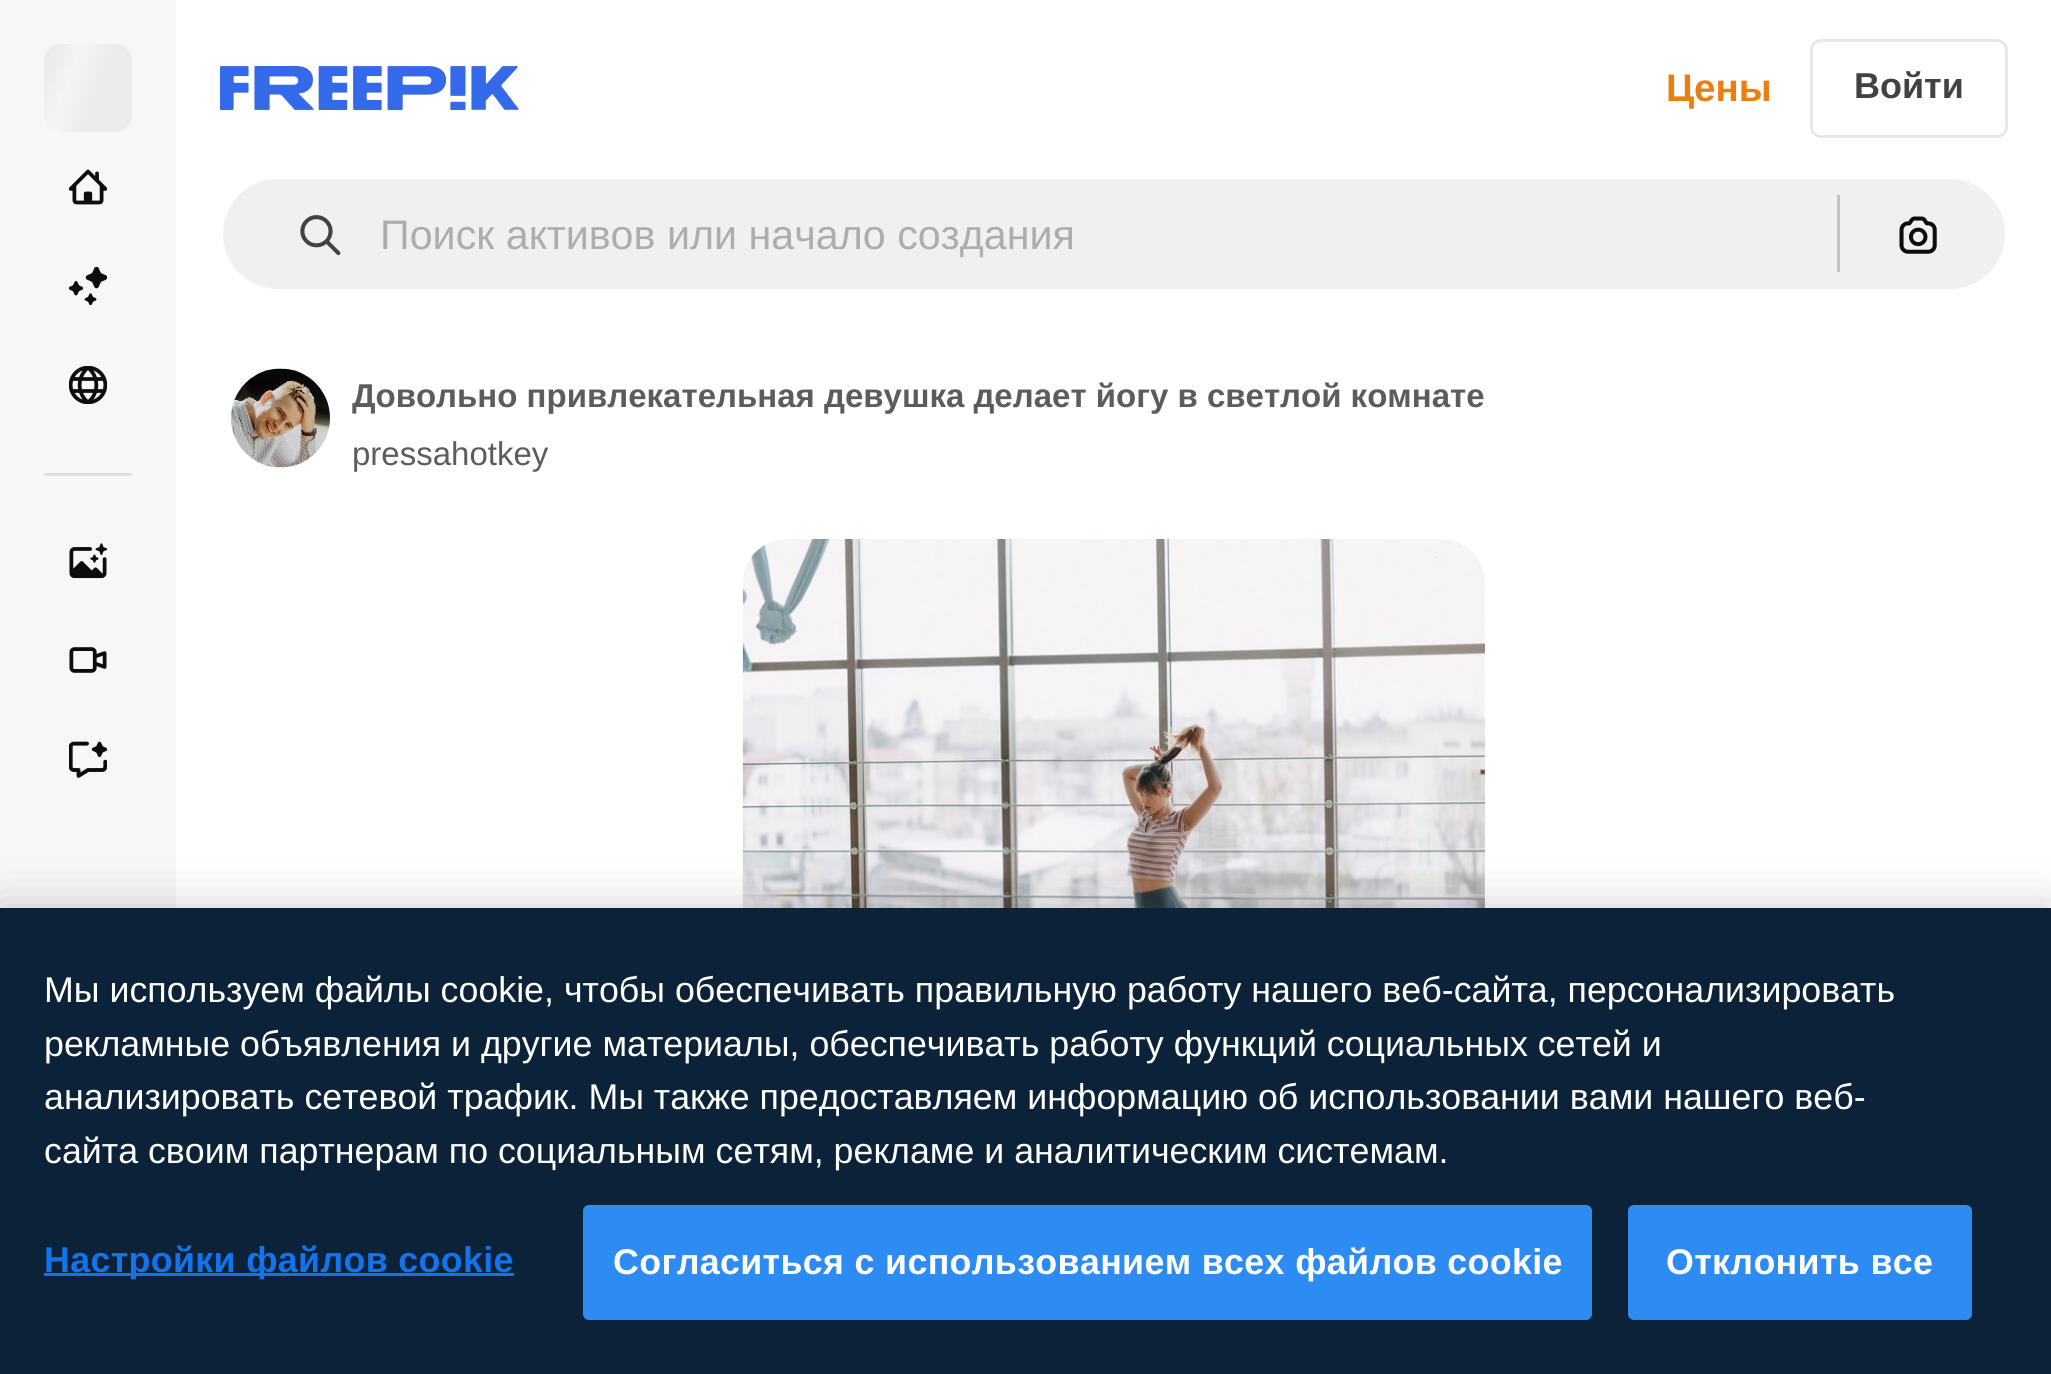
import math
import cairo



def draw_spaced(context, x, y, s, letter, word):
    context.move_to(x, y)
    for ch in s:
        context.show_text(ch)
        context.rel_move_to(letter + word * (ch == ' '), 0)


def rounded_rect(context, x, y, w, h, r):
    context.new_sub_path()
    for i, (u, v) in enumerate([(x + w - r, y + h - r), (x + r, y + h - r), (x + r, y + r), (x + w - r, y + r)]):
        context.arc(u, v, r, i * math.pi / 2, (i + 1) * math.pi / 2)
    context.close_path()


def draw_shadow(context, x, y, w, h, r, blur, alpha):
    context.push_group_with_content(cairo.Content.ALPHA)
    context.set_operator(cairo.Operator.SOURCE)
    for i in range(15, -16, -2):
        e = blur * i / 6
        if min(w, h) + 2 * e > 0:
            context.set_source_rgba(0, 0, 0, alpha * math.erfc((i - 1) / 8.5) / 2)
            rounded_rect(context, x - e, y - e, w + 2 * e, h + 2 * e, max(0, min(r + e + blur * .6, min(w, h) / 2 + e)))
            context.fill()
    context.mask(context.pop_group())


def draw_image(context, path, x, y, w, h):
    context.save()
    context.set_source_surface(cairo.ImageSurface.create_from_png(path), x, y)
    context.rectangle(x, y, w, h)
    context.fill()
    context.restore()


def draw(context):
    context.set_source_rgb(1, 1, 1)
    context.paint()
    context.set_source_rgb(247 / 255, 247 / 255, 247 / 255)
    context.rectangle(0, 0, 176, 908)
    context.fill()
    gradient = cairo.LinearGradient(40, 55, 224, 121)
    gradient.add_color_stop_rgba(0.08, 236 / 255, 236 / 255, 236 / 255, 1)
    gradient.add_color_stop_rgba(0.18, 245 / 255, 245 / 255, 245 / 255, 1)
    gradient.add_color_stop_rgba(0.33, 236 / 255, 236 / 255, 236 / 255, 1)
    context.set_source(gradient)
    rounded_rect(context, 44, 44, 88, 88, 17)
    context.fill()
    draw_image(context, "images/1.png", 69, 169, 38, 36)
    draw_image(context, "images/2.png", 69, 267, 38, 38)
    draw_image(context, "images/3.png", 69, 366, 38, 38)
    context.set_source_rgb(224 / 255, 224 / 255, 224 / 255)
    context.rectangle(44, 473, 88, 3)
    context.fill()
    draw_image(context, "images/4.png", 69, 543, 38, 36)
    draw_image(context, "images/5.png", 69, 647, 38, 26)
    draw_image(context, "images/6.png", 69, 741, 38, 37)
    draw_image(context, "images/7.png", 220, 66, 299, 44)
    rounded_rect(context, 1811.5, 40.5, 195, 96, 9.5)
    context.set_source_rgb(231 / 255, 231 / 255, 231 / 255)
    context.set_line_width(3)
    context.stroke()
    context.set_source_rgb(240 / 255, 240 / 255, 240 / 255)
    rounded_rect(context, 221.5, 177.5, 1785, 113, 56.5)
    context.fill_preserve()
    context.set_source_rgb(1, 1, 1)
    context.stroke()
    draw_image(context, "images/8.png", 300, 215, 41, 41)
    context.set_source_rgb(195 / 255, 195 / 255, 195 / 255)
    context.rectangle(1837, 195, 3, 77)
    context.fill()
    draw_image(context, "images/9.png", 1899, 216, 38, 38)
    draw_image(context, "images/10.png", 231, 368, 99, 100)
    draw_image(context, "images/11.png", 742, 539, 743, 369)
    context.set_source_rgb(0, 0, 0)
    draw_shadow(context, 0, 908, 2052, 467, 0, 25, 0.2)
    context.set_source_rgb(11 / 255, 34 / 255, 57 / 255)
    context.rectangle(0, 908, 2051, 466)
    context.fill()
    context.set_source_rgb(18 / 255, 115 / 255, 235 / 255)
    context.rectangle(44, 1273, 470, 3)
    context.fill()
    context.set_source_rgb(44 / 255, 140 / 255, 244 / 255)
    rounded_rect(context, 584.5, 1206.5, 1006, 112, 4.5)
    context.fill_preserve()
    context.stroke()
    rounded_rect(context, 1629.5, 1206.5, 341, 112, 4.5)
    context.fill_preserve()
    context.stroke()
    context.select_font_face("Liberation Sans", cairo.FontSlant.NORMAL, cairo.FontWeight.BOLD)
    context.set_font_size(38.5)
    context.set_source_rgb(234 / 255, 126 / 255, 17 / 255)
    context.move_to(1666, 101)
    context.show_text("Цены")
    context.set_font_size(36)
    context.set_source_rgb(66 / 255, 66 / 255, 66 / 255)
    context.move_to(1854, 98)
    context.show_text("Войти")
    context.select_font_face("Liberation Sans")
    context.set_font_size(41.25)
    context.set_source_rgb(173 / 255, 173 / 255, 173 / 255)
    context.move_to(380, 249)
    context.show_text("Поиск активов или начало создания")
    context.select_font_face("Liberation Sans", cairo.FontSlant.NORMAL, cairo.FontWeight.BOLD)
    context.set_font_size(33)
    context.set_source_rgb(92 / 255, 92 / 255, 92 / 255)
    context.move_to(352, 407)
    context.show_text("Довольно привлекательная девушка делает йогу в светлой комнате")
    context.select_font_face("Liberation Sans")
    context.move_to(352, 465)
    context.show_text("pressahotkey")
    context.set_font_size(35.77)
    context.set_source_rgb(1, 1, 1)
    context.move_to(44, 1002)
    context.show_text("Мы используем файлы cookie, чтобы обеспечивать правильную работу нашего веб-сайта, персонализировать")
    context.move_to(44, 1056)
    context.show_text("рекламные объявления и другие материалы, обеспечивать работу функций социальных сетей и")
    context.move_to(44, 1109)
    context.show_text("анализировать сетевой трафик. Мы также предоставляем информацию об использовании вами нашего веб-")
    context.move_to(44, 1163)
    context.show_text("сайта своим партнерам по социальным сетям, рекламе и аналитическим системам.")
    context.select_font_face("Liberation Sans", cairo.FontSlant.NORMAL, cairo.FontWeight.BOLD)
    context.set_source_rgb(18 / 255, 115 / 255, 235 / 255)
    draw_spaced(context, 44, 1272, "Настройки файлов cookie", 0.35, 0)
    context.set_source_rgb(1, 1, 1)
    draw_spaced(context, 613, 1274, "Согласиться с использованием всех файлов cookie", 0.35, 0)
    draw_spaced(context, 1666, 1274, "Отклонить все", 0.35, 0)


surface = cairo.ImageSurface(cairo.Format.RGB24, 2051, 1374)
context = cairo.Context(surface)
options = cairo.FontOptions()
options.set_hint_metrics(cairo.HintMetrics.OFF)
options.set_hint_style(cairo.HintStyle.NONE)
context.set_font_options(options)
context.set_miter_limit(4)
draw(context)
surface.write_to_png("out.png")
